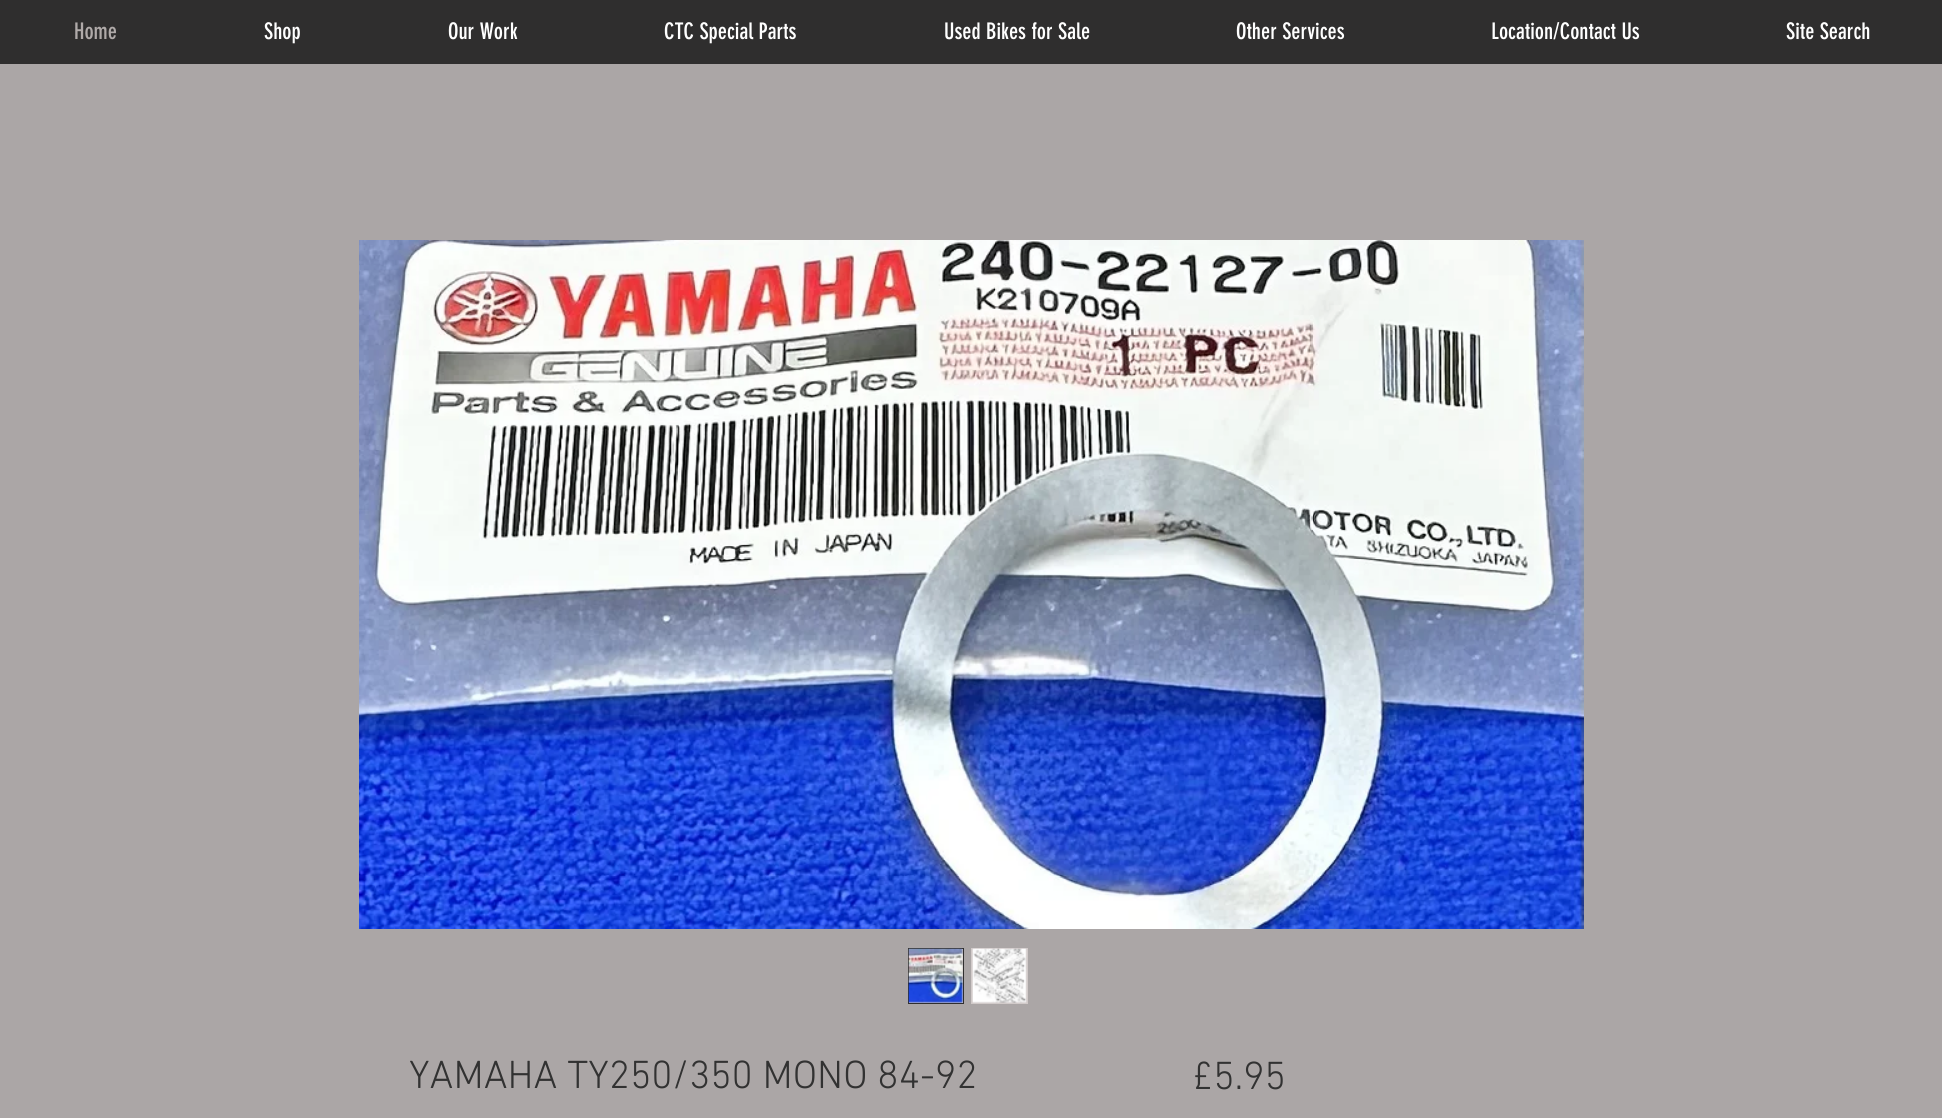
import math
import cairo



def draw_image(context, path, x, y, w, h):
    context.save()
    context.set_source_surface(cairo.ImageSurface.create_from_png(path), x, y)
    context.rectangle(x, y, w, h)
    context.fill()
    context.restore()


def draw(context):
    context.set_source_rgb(171 / 255, 166 / 255, 166 / 255)
    context.paint()
    context.set_source_rgb(47 / 255, 46 / 255, 46 / 255)
    context.rectangle(0, 0, 1942, 64)
    context.fill()
    draw_image(context, "images/1.png", 359, 240, 1225, 689)
    context.set_source_rgb(209 / 255, 202 / 255, 201 / 255)
    context.rectangle(908.5, 948.5, 55, 55)
    context.fill_preserve()
    context.set_source_rgb(47 / 255, 46 / 255, 46 / 255)
    context.set_line_width(1)
    context.stroke()
    draw_image(context, "images/2.png", 908, 948, 55, 55)
    context.set_source_rgb(209 / 255, 202 / 255, 201 / 255)
    context.rectangle(971, 948, 57, 56)
    context.fill()
    draw_image(context, "images/3.png", 972, 948, 55, 55)
    context.select_font_face("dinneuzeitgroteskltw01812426")
    context.set_font_size(22.5)
    context.set_source_rgb(176 / 255, 170 / 255, 169 / 255)
    context.move_to(74, 39)
    context.show_text("Home")
    context.set_source_rgb(1, 1, 1)
    context.move_to(264, 39)
    context.show_text("Shop")
    context.move_to(448, 39)
    context.show_text("Our Work")
    context.move_to(664, 39)
    context.show_text("CTC Special Parts")
    context.move_to(944, 39)
    context.show_text("Used Bikes for Sale")
    context.move_to(1236, 39)
    context.show_text("Other Services")
    context.move_to(1491, 39)
    context.show_text("Location/Contact Us")
    context.move_to(1786, 39)
    context.show_text("Site Search")
    context.select_font_face("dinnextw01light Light")
    context.set_font_size(40)
    context.set_source_rgb(50 / 255, 50 / 255, 50 / 255)
    context.move_to(409, 1088)
    context.show_text("YAMAHA TY250/350 MONO 84-92")
    context.move_to(1192, 1089)
    context.show_text("£5.95")


surface = cairo.ImageSurface(cairo.Format.RGB24, 1942, 1118)
context = cairo.Context(surface)
options = cairo.FontOptions()
options.set_hint_metrics(cairo.HintMetrics.OFF)
options.set_hint_style(cairo.HintStyle.NONE)
context.set_font_options(options)
context.set_miter_limit(4)
draw(context)
surface.write_to_png("out.png")
